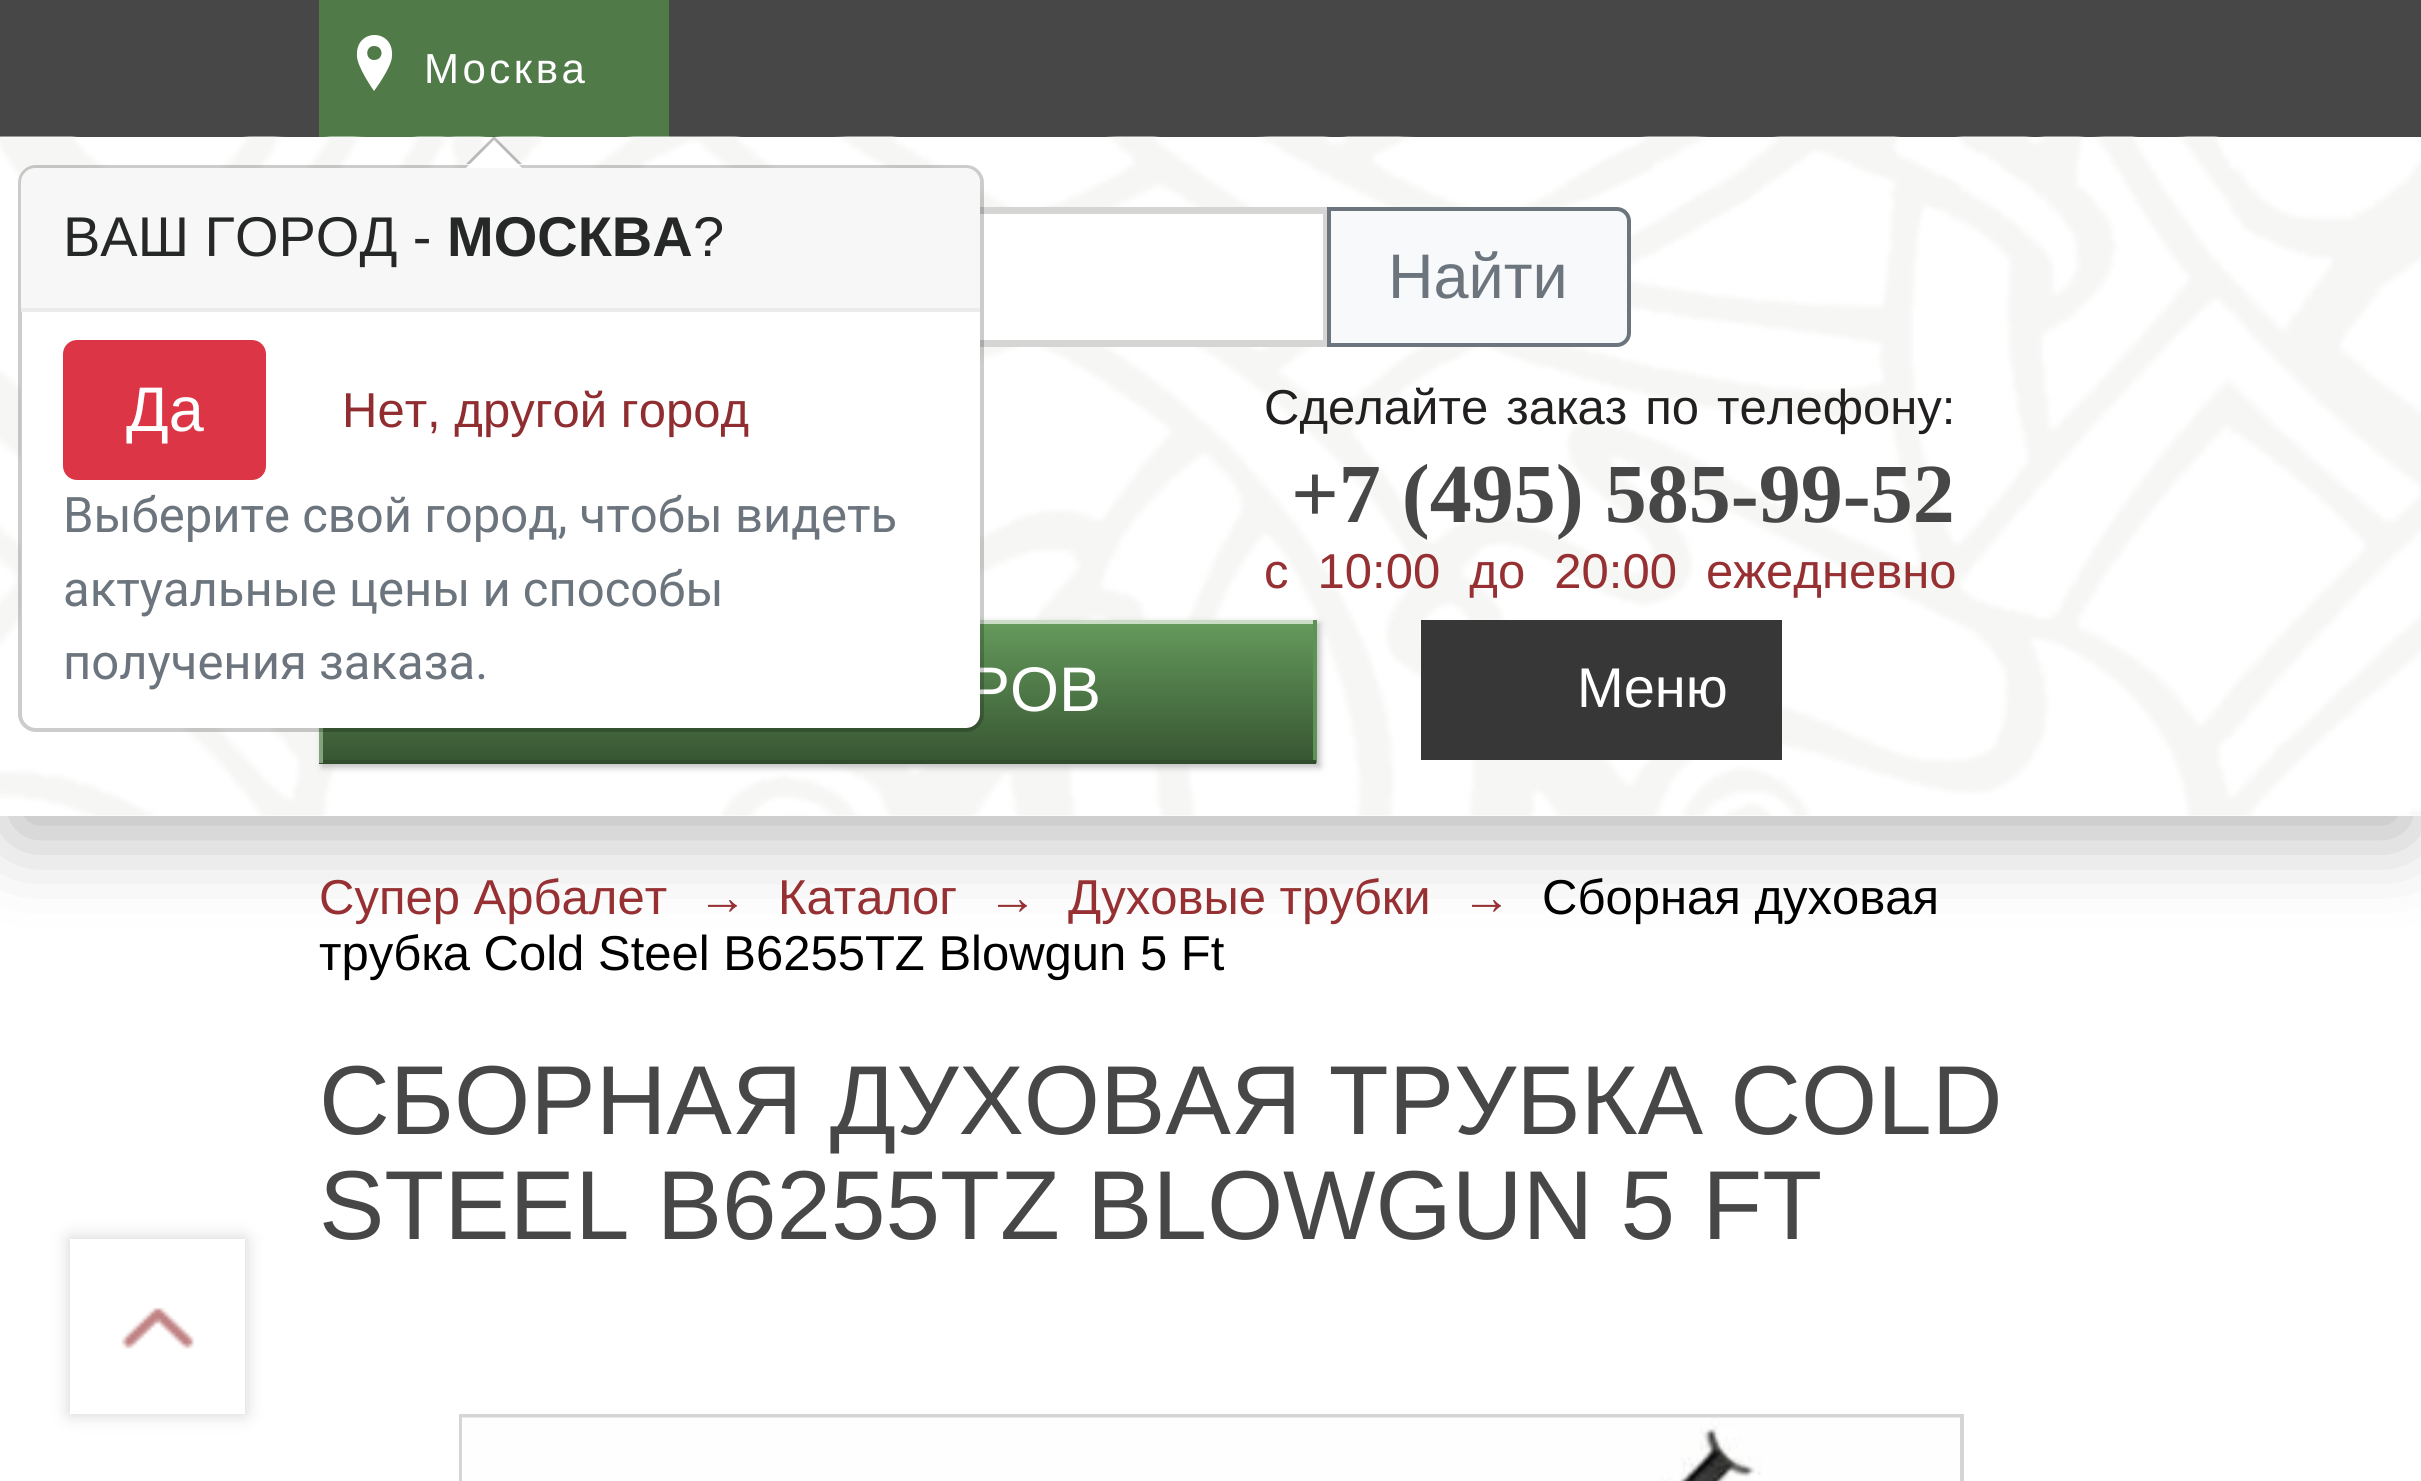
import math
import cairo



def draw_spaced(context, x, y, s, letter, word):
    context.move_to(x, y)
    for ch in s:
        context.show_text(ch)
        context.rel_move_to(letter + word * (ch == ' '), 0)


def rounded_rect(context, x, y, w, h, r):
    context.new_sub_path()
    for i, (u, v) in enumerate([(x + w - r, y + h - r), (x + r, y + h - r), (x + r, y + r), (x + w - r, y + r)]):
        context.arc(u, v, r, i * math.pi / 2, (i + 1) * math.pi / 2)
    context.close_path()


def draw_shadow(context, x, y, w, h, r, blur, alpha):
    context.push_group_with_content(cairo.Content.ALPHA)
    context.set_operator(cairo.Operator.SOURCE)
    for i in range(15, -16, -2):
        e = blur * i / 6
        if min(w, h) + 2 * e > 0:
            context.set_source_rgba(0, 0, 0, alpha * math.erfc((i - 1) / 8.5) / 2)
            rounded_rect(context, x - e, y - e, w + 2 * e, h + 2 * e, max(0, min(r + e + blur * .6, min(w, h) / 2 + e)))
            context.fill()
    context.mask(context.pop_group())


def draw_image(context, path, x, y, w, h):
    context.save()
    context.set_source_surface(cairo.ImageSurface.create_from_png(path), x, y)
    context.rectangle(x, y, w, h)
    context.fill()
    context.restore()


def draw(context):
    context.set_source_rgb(1, 1, 1)
    context.paint()
    context.set_source_rgb(0, 0, 0)
    draw_shadow(context, 14, 46, 2394, 787, 0, 44, 0.3)
    context.set_source_rgb(71 / 255, 71 / 255, 71 / 255)
    context.rectangle(0, 0, 2421, 137)
    context.fill()
    context.set_source_rgb(80 / 255, 122 / 255, 72 / 255)
    context.rectangle(319, 0, 350, 137)
    context.fill()
    context.set_source_rgb(1, 1, 1)
    context.set_fill_rule(cairo.FillRule.EVEN_ODD)
    context.new_path()
    context.move_to(357, 56)
    context.curve_to(355, 28, 394, 28, 392, 56)
    context.curve_to(392, 67, 374, 91, 374, 91)
    context.curve_to(374, 91, 357, 67, 357, 56)
    context.close_path()
    context.move_to(374, 60)
    context.curve_to(384, 60, 384, 46, 374, 46)
    context.curve_to(365, 46, 365, 60, 374, 60)
    context.close_path()
    context.fill()
    context.rectangle(0, 137, 2421, 679)
    context.fill()
    draw_image(context, "images/1.png", 0, 136, 2421, 680)
    context.rectangle(980, 214, 343, 126)
    context.fill()
    context.rectangle(322.5, 210.5, 1004, 133)
    context.set_source_rgb(213 / 255, 213 / 255, 212 / 255)
    context.set_line_width(7)
    context.stroke()
    context.set_source_rgb(248 / 255, 249 / 255, 250 / 255)
    context.new_path()
    context.move_to(1329, 209)
    context.line_to(1617, 209)
    context.curve_to(1623.5, 209, 1629, 214.5, 1629, 221)
    context.line_to(1629, 333)
    context.curve_to(1629, 339.5, 1623.5, 345, 1617, 345)
    context.line_to(1329, 345)
    context.close_path()
    context.fill_preserve()
    context.set_source_rgb(108 / 255, 117 / 255, 125 / 255)
    context.set_line_width(4)
    context.stroke()
    context.set_source_rgb(187 / 255, 187 / 255, 187 / 255)
    draw_shadow(context, 322, 623, 998, 144, 0, 3.5, 1)
    gradient = cairo.LinearGradient(817, 623, 817, 760)
    gradient.add_color_stop_rgba(0, 100 / 255, 154 / 255, 91 / 255, 1)
    gradient.add_color_stop_rgba(1, 56 / 255, 86 / 255, 51 / 255, 1)
    context.set_source(gradient)
    context.rectangle(323, 624, 990, 136)
    context.fill()
    context.set_source_rgb(203 / 255, 221 / 255, 199 / 255)
    context.rectangle(980, 620, 336, 4)
    context.fill()
    context.set_source_rgb(95 / 255, 146 / 255, 87 / 255)
    context.rectangle(1313, 620, 4, 143)
    context.fill()
    context.set_source_rgb(50 / 255, 77 / 255, 45 / 255)
    context.rectangle(319, 760, 997, 4)
    context.fill()
    context.set_source_rgb(131 / 255, 163 / 255, 127 / 255)
    context.rectangle(319, 728, 4, 35)
    context.fill()
    context.set_source_rgb(55 / 255, 55 / 255, 55 / 255)
    context.rectangle(1421, 620, 361, 140)
    context.fill()
    context.set_source_rgb(1, 1, 1)
    rounded_rect(context, 21, 168, 959, 560, 14)
    context.fill()
    context.set_source_rgba(0, 0, 0, 0.25)
    context.set_fill_rule(cairo.FillRule.WINDING)
    context.new_path()
    context.move_to(522, 164)
    context.line_to(466, 164)
    context.line_to(494, 136)
    context.close_path()
    context.fill()
    context.rectangle(461, 1416, 1501, 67)
    context.set_source_rgb(213 / 255, 213 / 255, 212 / 255)
    context.stroke()
    draw_image(context, "images/2.png", 462, 1417, 1498, 64)
    context.save()
    context.set_fill_rule(cairo.FillRule.EVEN_ODD)
    context.new_path()
    context.move_to(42, 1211)
    context.line_to(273, 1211)
    context.line_to(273, 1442)
    context.line_to(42, 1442)
    context.close_path()
    context.move_to(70, 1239)
    context.line_to(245, 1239)
    context.line_to(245, 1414)
    context.line_to(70, 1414)
    context.close_path()
    context.clip()
    context.set_source_rgb(102 / 255, 102 / 255, 102 / 255)
    draw_shadow(context, 70, 1239, 175, 175, 0, 9, 0.3)
    context.restore()
    draw_image(context, "images/3.png", 121, 1307, 73, 42)
    context.select_font_face("Liberation Sans")
    context.set_font_size(42)
    context.set_source_rgb(1, 1, 1)
    draw_spaced(context, 424, 83, "Москва", 3.5, 0)
    context.set_font_size(63)
    context.set_source_rgb(108 / 255, 117 / 255, 125 / 255)
    context.move_to(1388, 298)
    context.show_text("Найти")
    context.set_font_size(49)
    context.set_source_rgb(34 / 255, 31 / 255, 31 / 255)
    draw_spaced(context, 1264, 424, "Сделайте заказ по телефону:", 0, 4.5)
    context.select_font_face("Liberation Serif", cairo.FontSlant.NORMAL, cairo.FontWeight.BOLD)
    context.set_font_size(84)
    context.set_source_rgb(71 / 255, 71 / 255, 71 / 255)
    context.move_to(1291, 522)
    context.show_text("+7 (495) 585-99-52")
    context.select_font_face("Liberation Sans")
    context.set_font_size(49)
    context.set_source_rgb(150 / 255, 48 / 255, 50 / 255)
    draw_spaced(context, 1264, 588, "с 10:00 до 20:00 ежедневно", 0, 15.5)
    context.set_font_size(63)
    context.set_source_rgb(1, 1, 1)
    context.move_to(968, 711)
    context.show_text("РОВ")
    context.set_font_size(56)
    context.move_to(1577, 707)
    context.show_text("Меню")
    rounded_rect(context, 20, 167, 962, 563, 16)
    context.set_source_rgba(0, 0, 0, 0.2)
    context.stroke()
    context.set_source_rgb(1, 1, 1)
    context.new_path()
    context.move_to(522, 168)
    context.line_to(466, 168)
    context.line_to(494, 140)
    context.close_path()
    context.fill()
    context.set_source_rgb(247 / 255, 247 / 255, 247 / 255)
    context.new_path()
    context.move_to(35, 168)
    context.line_to(966, 168)
    context.curve_to(973.5, 168, 980, 174.5, 980, 182)
    context.line_to(980, 312)
    context.line_to(21, 312)
    context.line_to(21, 182)
    context.curve_to(21, 174.5, 27.5, 168, 35, 168)
    context.close_path()
    context.fill()
    context.set_source_rgb(235 / 255, 235 / 255, 235 / 255)
    context.rectangle(21, 308, 959, 4)
    context.fill()
    context.set_source_rgb(38 / 255, 39 / 255, 39 / 255)
    context.move_to(63, 256)
    context.show_text("ВАШ ГОРОД -")
    context.select_font_face("Liberation Sans", cairo.FontSlant.NORMAL, cairo.FontWeight.BOLD)
    context.move_to(447, 256)
    context.show_text("МОСКВА")
    context.select_font_face("Liberation Sans")
    context.move_to(693, 256)
    context.show_text("?")
    context.set_source_rgb(220 / 255, 53 / 255, 69 / 255)
    rounded_rect(context, 65, 342, 199, 136, 12)
    context.fill_preserve()
    context.stroke()
    context.set_font_size(63)
    context.set_source_rgb(1, 1, 1)
    context.move_to(126, 431)
    context.show_text("Да")
    context.set_font_size(49)
    context.set_source_rgb(143 / 255, 45 / 255, 49 / 255)
    context.move_to(342, 427)
    context.show_text("Нет, другой город")
    context.select_font_face("Roboto")
    context.set_source_rgb(108 / 255, 117 / 255, 125 / 255)
    context.move_to(63, 532)
    context.show_text("Выберите свой город, чтобы видеть")
    context.move_to(63, 606)
    context.show_text("актуальные цены и способы")
    context.move_to(63, 679)
    context.show_text("получения заказа.")
    context.select_font_face("Liberation Sans")
    context.set_source_rgb(150 / 255, 48 / 255, 50 / 255)
    context.move_to(319, 914)
    context.show_text("Супер Арбалет")
    context.move_to(698, 914)
    context.show_text("→")
    context.move_to(778, 914)
    context.show_text("Каталог")
    context.move_to(988, 914)
    context.show_text("→")
    context.move_to(1068, 914)
    context.show_text("Духовые трубки")
    context.move_to(1462, 914)
    context.show_text("→")
    context.set_source_rgb(0, 0, 0)
    context.move_to(1542, 914)
    context.show_text("Сборная духовая")
    context.move_to(319, 970)
    context.show_text("трубка Cold Steel B6255TZ Blowgun 5 Ft")
    context.set_font_size(98)
    context.set_source_rgb(71 / 255, 71 / 255, 71 / 255)
    context.move_to(319, 1134)
    context.show_text("СБОРНАЯ ДУХОВАЯ ТРУБКА COLD")
    context.move_to(319, 1239)
    context.show_text("STEEL B6255TZ BLOWGUN 5 FT")


surface = cairo.ImageSurface(cairo.Format.RGB24, 2421, 1481)
context = cairo.Context(surface)
options = cairo.FontOptions()
options.set_hint_metrics(cairo.HintMetrics.OFF)
options.set_hint_style(cairo.HintStyle.NONE)
context.set_font_options(options)
context.set_miter_limit(4)
draw(context)
surface.write_to_png("out.png")
